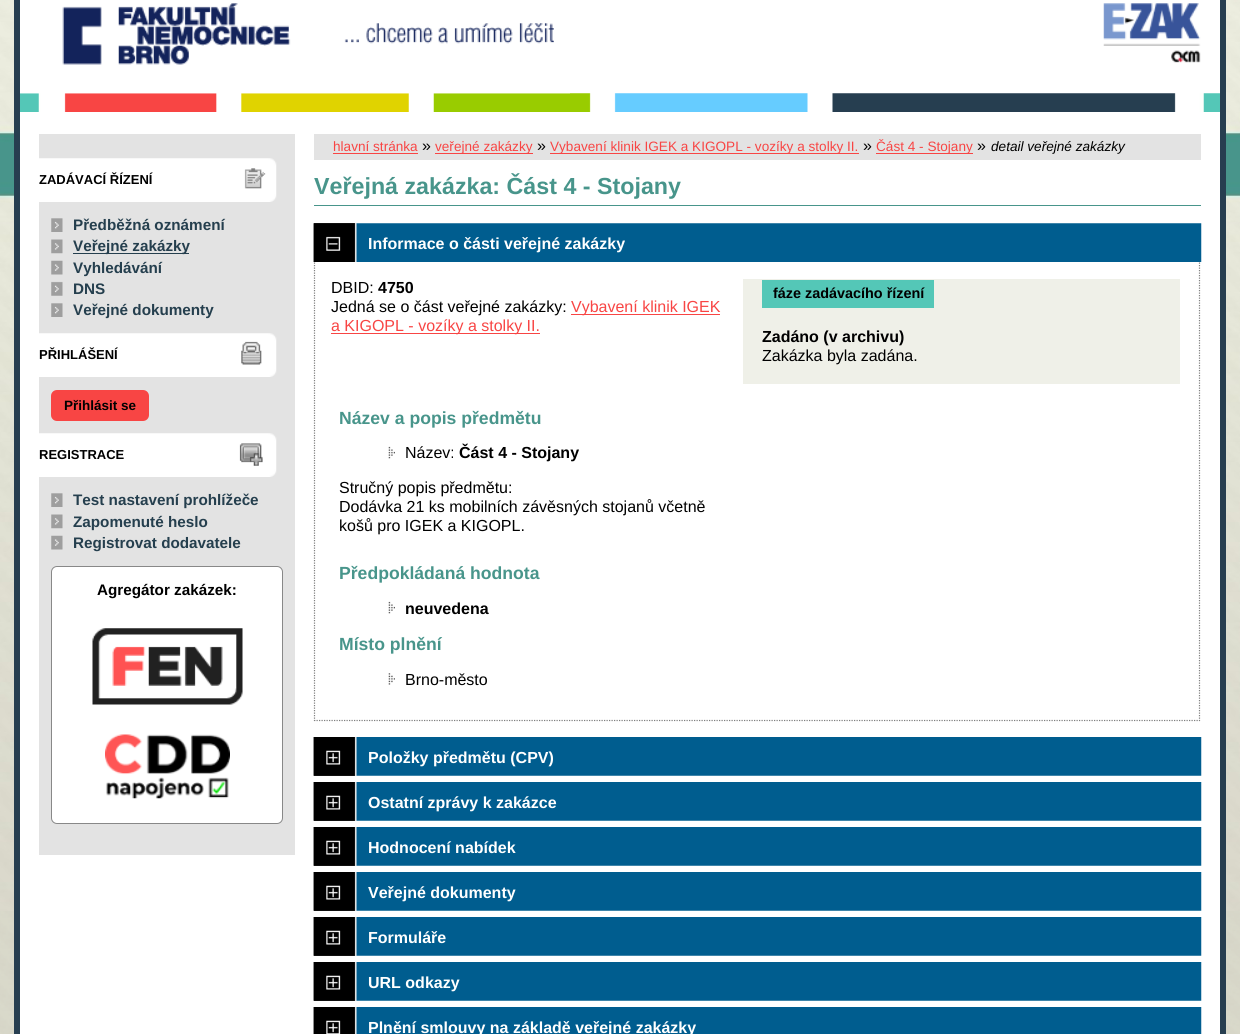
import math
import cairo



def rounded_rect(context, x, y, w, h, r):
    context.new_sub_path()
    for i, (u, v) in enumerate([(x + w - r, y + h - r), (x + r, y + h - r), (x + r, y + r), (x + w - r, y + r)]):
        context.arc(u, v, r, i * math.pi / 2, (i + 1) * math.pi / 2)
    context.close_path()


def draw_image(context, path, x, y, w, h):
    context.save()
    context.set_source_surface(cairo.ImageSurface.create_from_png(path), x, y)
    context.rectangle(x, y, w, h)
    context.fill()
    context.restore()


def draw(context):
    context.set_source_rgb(1, 1, 1)
    context.paint()
    draw_image(context, "images/1.png", 0, 911, 1240, 123)
    draw_image(context, "images/2.png", 0, 0, 1240, 911)
    context.set_source_rgb(1, 1, 1)
    context.rectangle(17, -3, 1206, 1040)
    context.fill_preserve()
    context.set_source_rgb(39 / 255, 62 / 255, 80 / 255)
    context.set_line_width(6)
    context.stroke()
    draw_image(context, "images/3.png", 20, 93, 1200, 19)
    draw_image(context, "images/4.png", 20, 3, 550, 91)
    draw_image(context, "images/5.png", 1103, 3, 98, 60)
    context.set_source_rgb(227 / 255, 227 / 255, 227 / 255)
    context.rectangle(39, 134, 256, 721)
    context.fill()
    draw_image(context, "images/6.png", 39, 158, 238, 44)
    draw_image(context, "images/7.png", 51, 218, 12, 14)
    draw_image(context, "images/8.png", 51, 239, 12, 15)
    context.set_source_rgb(37 / 255, 63 / 255, 78 / 255)
    context.rectangle(73, 253, 116, 1)
    context.fill()
    draw_image(context, "images/9.png", 51, 260, 12, 15)
    draw_image(context, "images/10.png", 51, 281, 12, 15)
    draw_image(context, "images/11.png", 51, 303, 12, 14)
    draw_image(context, "images/12.png", 39, 333, 238, 44)
    context.set_source_rgb(248 / 255, 69 / 255, 68 / 255)
    rounded_rect(context, 51, 390, 98, 31, 6)
    context.fill()
    draw_image(context, "images/13.png", 39, 433, 238, 44)
    draw_image(context, "images/11.png", 51, 493, 12, 14)
    draw_image(context, "images/8.png", 51, 514, 12, 15)
    draw_image(context, "images/9.png", 51, 535, 12, 15)
    context.set_source_rgb(1, 1, 1)
    rounded_rect(context, 51.5, 566.5, 231, 257, 5.5)
    context.fill_preserve()
    context.set_source_rgb(136 / 255, 136 / 255, 136 / 255)
    context.set_line_width(1)
    context.stroke()
    draw_image(context, "images/14.png", 92, 628, 151, 77)
    draw_image(context, "images/15.png", 105, 734, 125, 65)
    context.set_source_rgb(227 / 255, 227 / 255, 227 / 255)
    context.rectangle(314, 134, 887, 26)
    context.fill()
    context.set_source_rgb(248 / 255, 69 / 255, 68 / 255)
    context.rectangle(333, 153, 85, 1)
    context.fill()
    context.rectangle(435, 153, 98, 1)
    context.fill()
    context.rectangle(550, 153, 309, 1)
    context.fill()
    context.rectangle(876, 153, 97, 1)
    context.fill()
    context.set_source_rgb(72 / 255, 149 / 255, 139 / 255)
    context.rectangle(314, 205, 887, 1)
    context.fill()
    draw_image(context, "images/16.png", 313, 223, 889, 39)
    draw_image(context, "images/17.png", 313, 223, 44, 39)
    context.new_path()
    context.move_to(1199.5, 262.5)
    context.line_to(1199.5, 721)
    context.set_source_rgb(127 / 255, 127 / 255, 127 / 255)
    context.set_line_width(1.2)
    context.set_dash([1.25, 1.25])
    context.stroke()
    context.new_path()
    context.move_to(314, 720.5)
    context.line_to(1200, 720.5)
    context.stroke()
    context.new_path()
    context.move_to(314.5, 262.5)
    context.line_to(314.5, 721)
    context.stroke()
    context.set_source_rgb(239 / 255, 240 / 255, 232 / 255)
    context.rectangle(743, 279, 437, 105)
    context.fill()
    context.set_source_rgb(84 / 255, 199 / 255, 183 / 255)
    context.rectangle(762, 280, 172, 28)
    context.fill()
    context.set_source_rgb(248 / 255, 69 / 255, 68 / 255)
    context.rectangle(571, 314, 149, 1)
    context.fill()
    context.rectangle(331, 333, 209, 1)
    context.fill()
    draw_image(context, "images/18.png", 388, 446, 7, 13)
    draw_image(context, "images/18.png", 388, 601, 7, 13)
    draw_image(context, "images/19.png", 388, 673, 7, 12)
    draw_image(context, "images/20.png", 313, 737, 889, 39)
    draw_image(context, "images/21.png", 313, 737, 44, 39)
    draw_image(context, "images/20.png", 313, 782, 889, 39)
    draw_image(context, "images/21.png", 313, 782, 44, 39)
    draw_image(context, "images/20.png", 313, 827, 889, 39)
    draw_image(context, "images/21.png", 313, 827, 44, 39)
    draw_image(context, "images/20.png", 313, 872, 889, 39)
    draw_image(context, "images/21.png", 313, 872, 44, 39)
    draw_image(context, "images/20.png", 313, 917, 889, 39)
    draw_image(context, "images/21.png", 313, 917, 44, 39)
    draw_image(context, "images/20.png", 313, 962, 889, 39)
    draw_image(context, "images/21.png", 313, 962, 44, 39)
    draw_image(context, "images/22.png", 313, 1007, 889, 27)
    draw_image(context, "images/23.png", 313, 1007, 44, 27)
    context.select_font_face("Liberation Sans", cairo.FontSlant.NORMAL, cairo.FontWeight.BOLD)
    context.set_font_size(13)
    context.set_source_rgb(0, 0, 0)
    context.move_to(39, 184)
    context.show_text("ZADÁVACÍ ŘÍZENÍ")
    context.set_font_size(15.25)
    context.set_source_rgb(37 / 255, 63 / 255, 78 / 255)
    context.move_to(73, 230)
    context.show_text("Předběžná oznámení")
    context.move_to(73, 251)
    context.show_text("Veřejné zakázky")
    context.move_to(73, 273)
    context.show_text("Vyhledávání")
    context.move_to(73, 294)
    context.show_text("DNS")
    context.move_to(73, 315)
    context.show_text("Veřejné dokumenty")
    context.set_font_size(13)
    context.set_source_rgb(0, 0, 0)
    context.move_to(39, 359)
    context.show_text("PŘIHLÁŠENÍ")
    context.set_font_size(13.5)
    context.move_to(64, 410)
    context.show_text("Přihlásit se")
    context.set_font_size(13)
    context.move_to(39, 459)
    context.show_text("REGISTRACE")
    context.set_font_size(15.25)
    context.set_source_rgb(37 / 255, 63 / 255, 78 / 255)
    context.move_to(73, 505)
    context.show_text("Test nastavení prohlížeče")
    context.move_to(73, 527)
    context.show_text("Zapomenuté heslo")
    context.move_to(73, 548)
    context.show_text("Registrovat dodavatele")
    context.set_source_rgb(0, 0, 0)
    context.move_to(97, 595)
    context.show_text("Agregátor zakázek:")
    context.select_font_face("Liberation Sans")
    context.set_font_size(13.6)
    context.set_source_rgb(248 / 255, 69 / 255, 68 / 255)
    context.move_to(333, 151)
    context.show_text("hlavní stránka")
    context.set_font_size(16)
    context.set_source_rgb(0, 0, 0)
    context.move_to(422, 151)
    context.show_text("»")
    context.set_font_size(13.6)
    context.set_source_rgb(248 / 255, 69 / 255, 68 / 255)
    context.move_to(435, 151)
    context.show_text("veřejné zakázky")
    context.set_font_size(16)
    context.set_source_rgb(0, 0, 0)
    context.move_to(537, 151)
    context.show_text("»")
    context.set_font_size(13.6)
    context.set_source_rgb(248 / 255, 69 / 255, 68 / 255)
    context.move_to(550, 151)
    context.show_text("Vybavení klinik IGEK a KIGOPL - vozíky a stolky II.")
    context.set_font_size(16)
    context.set_source_rgb(0, 0, 0)
    context.move_to(863, 151)
    context.show_text("»")
    context.set_font_size(13.6)
    context.set_source_rgb(248 / 255, 69 / 255, 68 / 255)
    context.move_to(876, 151)
    context.show_text("Část 4 - Stojany")
    context.set_font_size(16)
    context.set_source_rgb(0, 0, 0)
    context.move_to(977, 151)
    context.show_text("»")
    context.select_font_face("Liberation Sans", cairo.FontSlant.ITALIC)
    context.set_font_size(13.6)
    context.move_to(991, 151)
    context.show_text("detail veřejné zakázky")
    context.select_font_face("Liberation Sans", cairo.FontSlant.NORMAL, cairo.FontWeight.BOLD)
    context.set_font_size(23.25)
    context.set_source_rgb(72 / 255, 149 / 255, 139 / 255)
    context.move_to(314, 194)
    context.show_text("Veřejná zakázka: Část 4 - Stojany")
    context.set_font_size(16)
    context.set_source_rgb(1, 1, 1)
    context.move_to(368, 249)
    context.show_text("Informace o části veřejné zakázky")
    context.select_font_face("Liberation Sans")
    context.set_source_rgb(0, 0, 0)
    context.move_to(331, 293)
    context.show_text("DBID:")
    context.select_font_face("Liberation Sans", cairo.FontSlant.NORMAL, cairo.FontWeight.BOLD)
    context.move_to(378, 293)
    context.show_text("4750")
    context.set_font_size(14.4)
    context.move_to(773, 298)
    context.show_text("fáze zadávacího řízení")
    context.set_font_size(16)
    context.move_to(762, 342)
    context.show_text("Zadáno (v archivu)")
    context.select_font_face("Liberation Sans")
    context.move_to(762, 361)
    context.show_text("Zakázka byla zadána.")
    context.move_to(331, 312)
    context.show_text("Jedná se o část veřejné zakázky:")
    context.set_source_rgb(248 / 255, 69 / 255, 68 / 255)
    context.move_to(571, 312)
    context.show_text("Vybavení klinik IGEK")
    context.move_to(331, 331)
    context.show_text("a KIGOPL - vozíky a stolky II.")
    context.select_font_face("Liberation Sans", cairo.FontSlant.NORMAL, cairo.FontWeight.BOLD)
    context.set_font_size(17.6)
    context.set_source_rgb(72 / 255, 149 / 255, 139 / 255)
    context.move_to(339, 424)
    context.show_text("Název a popis předmětu")
    context.select_font_face("Liberation Sans")
    context.set_font_size(16)
    context.set_source_rgb(0, 0, 0)
    context.move_to(405, 458)
    context.show_text("Název:")
    context.select_font_face("Liberation Sans", cairo.FontSlant.NORMAL, cairo.FontWeight.BOLD)
    context.move_to(459, 458)
    context.show_text("Část 4 - Stojany")
    context.select_font_face("Liberation Sans")
    context.move_to(339, 493)
    context.show_text("Stručný popis předmětu:")
    context.move_to(339, 512)
    context.show_text("Dodávka 21 ks mobilních závěsných stojanů včetně")
    context.move_to(339, 531)
    context.show_text("košů pro IGEK a KIGOPL.")
    context.select_font_face("Liberation Sans", cairo.FontSlant.NORMAL, cairo.FontWeight.BOLD)
    context.set_font_size(17.6)
    context.set_source_rgb(72 / 255, 149 / 255, 139 / 255)
    context.move_to(339, 579)
    context.show_text("Předpokládaná hodnota")
    context.set_font_size(16)
    context.set_source_rgb(0, 0, 0)
    context.move_to(405, 614)
    context.show_text("neuvedena")
    context.set_font_size(17.6)
    context.set_source_rgb(72 / 255, 149 / 255, 139 / 255)
    context.move_to(339, 650)
    context.show_text("Místo plnění")
    context.select_font_face("Liberation Sans")
    context.set_font_size(16)
    context.set_source_rgb(0, 0, 0)
    context.move_to(405, 685)
    context.show_text("Brno-město")
    context.select_font_face("Liberation Sans", cairo.FontSlant.NORMAL, cairo.FontWeight.BOLD)
    context.set_source_rgb(1, 1, 1)
    context.move_to(368, 763)
    context.show_text("Položky předmětu (CPV)")
    context.move_to(368, 808)
    context.show_text("Ostatní zprávy k zakázce")
    context.move_to(368, 853)
    context.show_text("Hodnocení nabídek")
    context.move_to(368, 898)
    context.show_text("Veřejné dokumenty")
    context.move_to(368, 943)
    context.show_text("Formuláře")
    context.move_to(368, 988)
    context.show_text("URL odkazy")
    context.move_to(368, 1033)
    context.show_text("Plnění smlouvy na základě veřejné zakázky")


surface = cairo.ImageSurface(cairo.Format.RGB24, 1240, 1034)
context = cairo.Context(surface)
options = cairo.FontOptions()
options.set_hint_metrics(cairo.HintMetrics.OFF)
options.set_hint_style(cairo.HintStyle.NONE)
context.set_font_options(options)
context.set_miter_limit(4)
draw(context)
surface.write_to_png("out.png")
